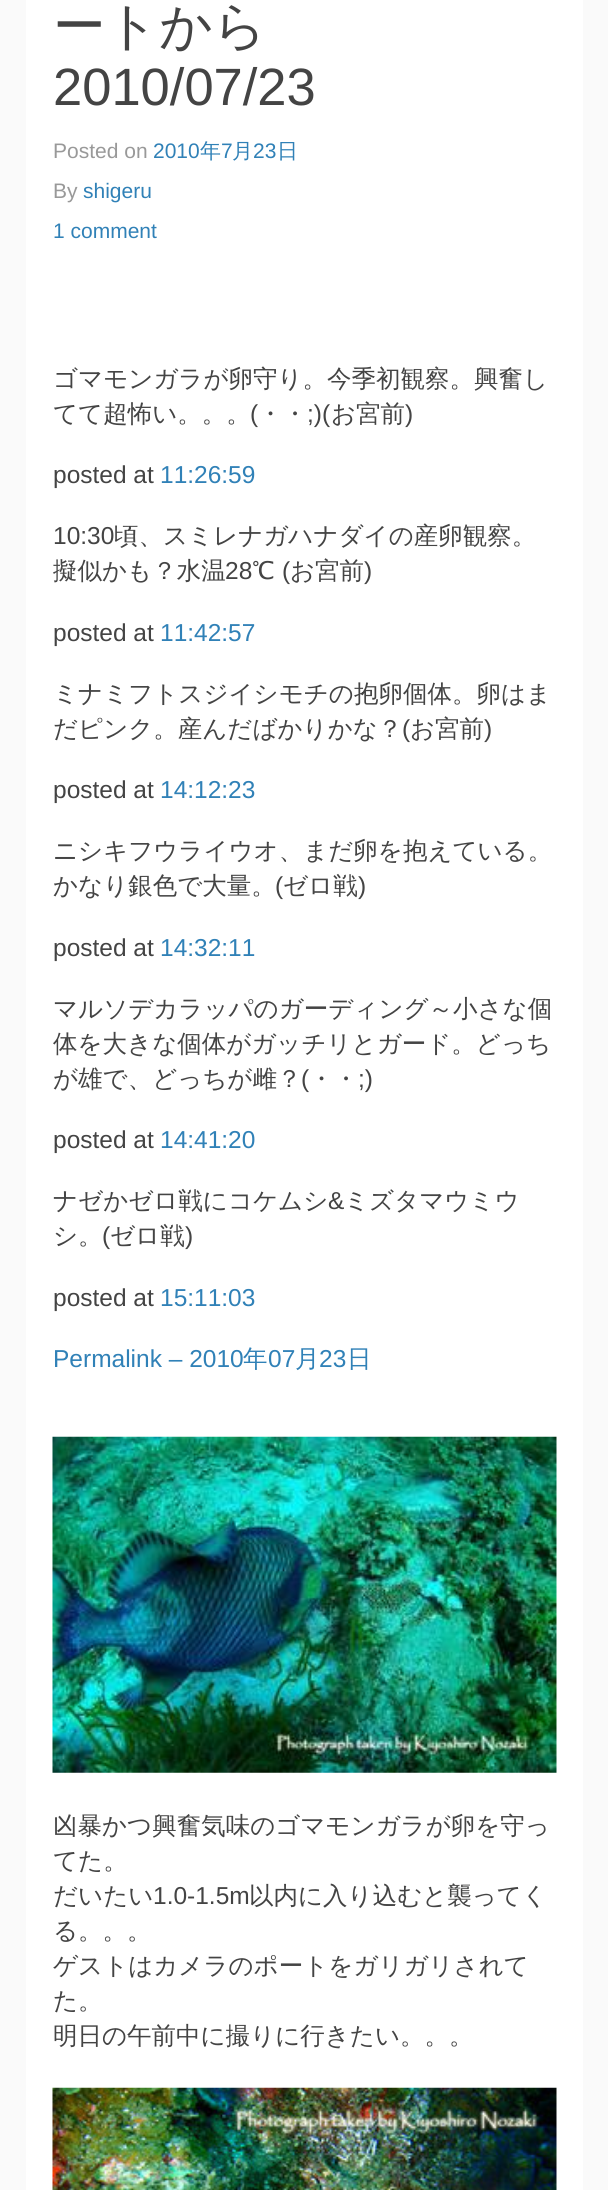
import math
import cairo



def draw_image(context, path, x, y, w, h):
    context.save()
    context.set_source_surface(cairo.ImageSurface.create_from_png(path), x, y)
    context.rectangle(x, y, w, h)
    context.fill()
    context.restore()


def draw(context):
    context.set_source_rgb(250 / 255, 250 / 255, 250 / 255)
    context.paint()
    context.set_source_rgb(1, 1, 1)
    context.rectangle(26, 0, 557, 2190)
    context.fill()
    draw_image(context, "images/1.png", 52, 1436, 505, 337)
    draw_image(context, "images/2.png", 52, 2087, 505, 103)
    context.select_font_face("WenQuanYi Zen Hei Medium")
    context.set_font_size(52.5)
    context.set_source_rgb(68 / 255, 68 / 255, 68 / 255)
    context.move_to(53, 44)
    context.show_text("ートから")
    context.select_font_face("Liberation Sans")
    context.move_to(53, 105)
    context.show_text("2010/07/23")
    context.set_font_size(21)
    context.set_source_rgb(153 / 255, 153 / 255, 153 / 255)
    context.move_to(53, 158)
    context.show_text("Posted on")
    context.set_source_rgb(48 / 255, 129 / 255, 183 / 255)
    context.move_to(153, 158)
    context.show_text("2010")
    context.select_font_face("WenQuanYi Zen Hei Medium")
    context.move_to(200, 158)
    context.show_text("年")
    context.select_font_face("Liberation Sans")
    context.move_to(221, 158)
    context.show_text("7")
    context.select_font_face("WenQuanYi Zen Hei Medium")
    context.move_to(232, 158)
    context.show_text("月")
    context.select_font_face("Liberation Sans")
    context.move_to(253, 158)
    context.show_text("23")
    context.select_font_face("WenQuanYi Zen Hei Medium")
    context.move_to(277, 158)
    context.show_text("日")
    context.select_font_face("Liberation Sans")
    context.set_source_rgb(153 / 255, 153 / 255, 153 / 255)
    context.move_to(53, 198)
    context.show_text("By")
    context.set_source_rgb(48 / 255, 129 / 255, 183 / 255)
    context.move_to(83, 198)
    context.show_text("shigeru")
    context.move_to(53, 238)
    context.show_text("1 comment")
    context.select_font_face("WenQuanYi Zen Hei Medium")
    context.set_font_size(24.5)
    context.set_source_rgb(68 / 255, 68 / 255, 68 / 255)
    context.move_to(53, 387)
    context.show_text("ゴマモンガラが卵守り。今季初観察。興奮し")
    context.move_to(53, 422)
    context.show_text("てて超怖い。。。")
    context.select_font_face("Liberation Sans")
    context.move_to(250, 422)
    context.show_text("(")
    context.select_font_face("WenQuanYi Zen Hei Medium")
    context.move_to(258, 422)
    context.show_text("・・")
    context.select_font_face("Liberation Sans")
    context.move_to(307, 422)
    context.show_text(";)(")
    context.select_font_face("WenQuanYi Zen Hei Medium")
    context.move_to(331, 422)
    context.show_text("お宮前")
    context.select_font_face("Liberation Sans")
    context.move_to(405, 422)
    context.show_text(")")
    context.move_to(53, 483)
    context.show_text("posted at")
    context.set_source_rgb(48 / 255, 129 / 255, 183 / 255)
    context.move_to(160, 483)
    context.show_text("11:26:59")
    context.set_source_rgb(68 / 255, 68 / 255, 68 / 255)
    context.move_to(53, 544)
    context.show_text("10:30")
    context.select_font_face("WenQuanYi Zen Hei Medium")
    context.move_to(114, 544)
    context.show_text("頃、スミレナガハナダイの産卵観察。")
    context.move_to(53, 579)
    context.show_text("擬似かも？水温")
    context.select_font_face("Liberation Sans")
    context.move_to(225, 579)
    context.show_text("28")
    context.select_font_face("WenQuanYi Zen Hei Medium")
    context.move_to(252, 579)
    context.show_text("℃")
    context.select_font_face("Liberation Sans")
    context.move_to(282, 579)
    context.show_text("(")
    context.select_font_face("WenQuanYi Zen Hei Medium")
    context.move_to(290, 579)
    context.show_text("お宮前")
    context.select_font_face("Liberation Sans")
    context.move_to(364, 579)
    context.show_text(")")
    context.move_to(53, 641)
    context.show_text("posted at")
    context.set_source_rgb(48 / 255, 129 / 255, 183 / 255)
    context.move_to(160, 641)
    context.show_text("11:42:57")
    context.select_font_face("WenQuanYi Zen Hei Medium")
    context.set_source_rgb(68 / 255, 68 / 255, 68 / 255)
    context.move_to(53, 702)
    context.show_text("ミナミフトスジイシモチの抱卵個体。卵はま")
    context.move_to(53, 737)
    context.show_text("だピンク。産んだばかりかな？")
    context.select_font_face("Liberation Sans")
    context.move_to(402, 737)
    context.show_text("(")
    context.select_font_face("WenQuanYi Zen Hei Medium")
    context.move_to(410, 737)
    context.show_text("お宮前")
    context.select_font_face("Liberation Sans")
    context.move_to(484, 737)
    context.show_text(")")
    context.move_to(53, 798)
    context.show_text("posted at")
    context.set_source_rgb(48 / 255, 129 / 255, 183 / 255)
    context.move_to(160, 798)
    context.show_text("14:12:23")
    context.select_font_face("WenQuanYi Zen Hei Medium")
    context.set_source_rgb(68 / 255, 68 / 255, 68 / 255)
    context.move_to(53, 859)
    context.show_text("ニシキフウライウオ、まだ卵を抱えている。")
    context.move_to(53, 894)
    context.show_text("かなり銀色で大量。")
    context.select_font_face("Liberation Sans")
    context.move_to(275, 894)
    context.show_text("(")
    context.select_font_face("WenQuanYi Zen Hei Medium")
    context.move_to(283, 894)
    context.show_text("ゼロ戦")
    context.select_font_face("Liberation Sans")
    context.move_to(358, 894)
    context.show_text(")")
    context.move_to(53, 956)
    context.show_text("posted at")
    context.set_source_rgb(48 / 255, 129 / 255, 183 / 255)
    context.move_to(160, 956)
    context.show_text("14:32:11")
    context.select_font_face("WenQuanYi Zen Hei Medium")
    context.set_source_rgb(68 / 255, 68 / 255, 68 / 255)
    context.move_to(53, 1017)
    context.show_text("マルソデカラッパのガーディング～小さな個")
    context.move_to(53, 1052)
    context.show_text("体を大きな個体がガッチリとガード。どっち")
    context.move_to(53, 1087)
    context.show_text("が雄で、どっちが雌？")
    context.select_font_face("Liberation Sans")
    context.move_to(301, 1087)
    context.show_text("(")
    context.select_font_face("WenQuanYi Zen Hei Medium")
    context.move_to(309, 1087)
    context.show_text("・・")
    context.select_font_face("Liberation Sans")
    context.move_to(358, 1087)
    context.show_text(";)")
    context.move_to(53, 1148)
    context.show_text("posted at")
    context.set_source_rgb(48 / 255, 129 / 255, 183 / 255)
    context.move_to(160, 1148)
    context.show_text("14:41:20")
    context.select_font_face("WenQuanYi Zen Hei Medium")
    context.set_source_rgb(68 / 255, 68 / 255, 68 / 255)
    context.move_to(53, 1209)
    context.show_text("ナゼかゼロ戦にコケムシ")
    context.select_font_face("Liberation Sans")
    context.move_to(328, 1209)
    context.show_text("&")
    context.select_font_face("WenQuanYi Zen Hei Medium")
    context.move_to(344, 1209)
    context.show_text("ミズタマウミウ")
    context.move_to(53, 1244)
    context.show_text("シ。")
    context.select_font_face("Liberation Sans")
    context.move_to(102, 1244)
    context.show_text("(")
    context.select_font_face("WenQuanYi Zen Hei Medium")
    context.move_to(110, 1244)
    context.show_text("ゼロ戦")
    context.select_font_face("Liberation Sans")
    context.move_to(185, 1244)
    context.show_text(")")
    context.move_to(53, 1306)
    context.show_text("posted at")
    context.set_source_rgb(48 / 255, 129 / 255, 183 / 255)
    context.move_to(160, 1306)
    context.show_text("15:11:03")
    context.move_to(53, 1367)
    context.show_text("Permalink – 2010")
    context.select_font_face("WenQuanYi Zen Hei Medium")
    context.move_to(243, 1367)
    context.show_text("年")
    context.select_font_face("Liberation Sans")
    context.move_to(268, 1367)
    context.show_text("07")
    context.select_font_face("WenQuanYi Zen Hei Medium")
    context.move_to(295, 1367)
    context.show_text("月")
    context.select_font_face("Liberation Sans")
    context.move_to(319, 1367)
    context.show_text("23")
    context.select_font_face("WenQuanYi Zen Hei Medium")
    context.move_to(347, 1367)
    context.show_text("日")
    context.set_source_rgb(68 / 255, 68 / 255, 68 / 255)
    context.move_to(53, 1834)
    context.show_text("凶暴かつ興奮気味のゴマモンガラが卵を守っ")
    context.move_to(53, 1869)
    context.show_text("てた。")
    context.move_to(53, 1904)
    context.show_text("だいたい")
    context.select_font_face("Liberation Sans")
    context.move_to(153, 1904)
    context.show_text("1.0-1.5m")
    context.select_font_face("WenQuanYi Zen Hei Medium")
    context.move_to(249, 1904)
    context.show_text("以内に入り込むと襲ってく")
    context.move_to(53, 1939)
    context.show_text("る。。。")
    context.move_to(53, 1974)
    context.show_text("ゲストはカメラのポートをガリガリされて")
    context.move_to(53, 2009)
    context.show_text("た。")
    context.move_to(53, 2044)
    context.show_text("明日の午前中に撮りに行きたい。。。")


surface = cairo.ImageSurface(cairo.Format.RGB24, 608, 2190)
context = cairo.Context(surface)
options = cairo.FontOptions()
options.set_hint_metrics(cairo.HintMetrics.OFF)
options.set_hint_style(cairo.HintStyle.NONE)
context.set_font_options(options)
context.set_miter_limit(4)
draw(context)
surface.write_to_png("out.png")
